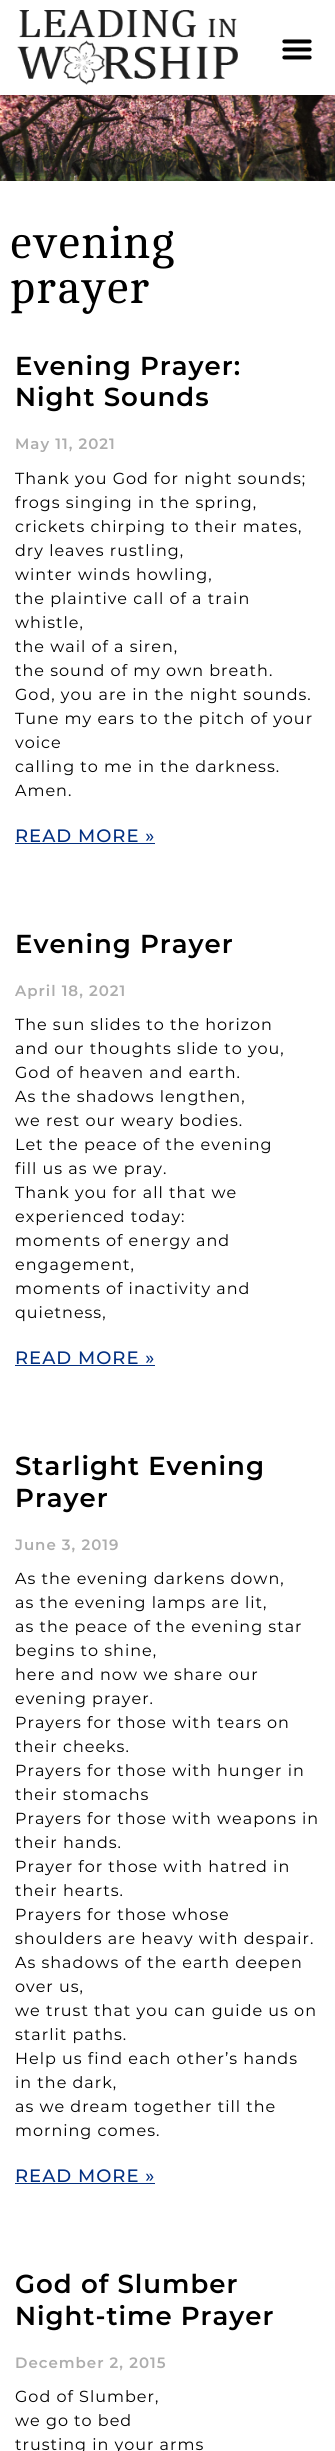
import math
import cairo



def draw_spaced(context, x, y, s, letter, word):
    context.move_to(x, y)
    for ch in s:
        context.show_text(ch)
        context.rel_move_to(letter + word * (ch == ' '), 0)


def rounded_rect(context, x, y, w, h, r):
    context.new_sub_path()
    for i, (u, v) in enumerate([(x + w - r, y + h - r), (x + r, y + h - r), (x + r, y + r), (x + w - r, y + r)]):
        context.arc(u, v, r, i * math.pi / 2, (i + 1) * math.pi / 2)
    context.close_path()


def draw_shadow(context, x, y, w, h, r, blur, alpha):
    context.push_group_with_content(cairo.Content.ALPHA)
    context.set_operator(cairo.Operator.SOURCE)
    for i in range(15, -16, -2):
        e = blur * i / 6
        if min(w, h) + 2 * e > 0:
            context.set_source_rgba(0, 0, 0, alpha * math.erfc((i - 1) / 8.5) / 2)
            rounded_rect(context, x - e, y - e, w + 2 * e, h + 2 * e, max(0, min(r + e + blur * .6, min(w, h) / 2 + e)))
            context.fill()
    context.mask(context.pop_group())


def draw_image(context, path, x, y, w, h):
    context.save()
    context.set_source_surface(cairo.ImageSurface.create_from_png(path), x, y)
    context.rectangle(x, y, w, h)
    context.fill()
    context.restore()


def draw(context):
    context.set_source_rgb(1, 1, 1)
    context.paint()
    draw_image(context, "images/3.png", 0, 95, 335, 86)
    context.save()
    context.rectangle(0, 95, 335, 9)
    context.clip()
    context.set_source_rgb(0, 0, 0)
    draw_shadow(context, 0, 0, 335, 95, 0, 5, 0.5)
    context.restore()
    draw_image(context, "images/1.png", 17, 10, 221, 75)
    draw_image(context, "images/2.png", 282, 39, 30, 21)
    context.set_source_rgb(3 / 255, 48 / 255, 129 / 255)
    context.rectangle(15, 843, 140, 1)
    context.fill()
    context.rectangle(15, 1365, 140, 1)
    context.fill()
    context.rectangle(15, 2183, 140, 1)
    context.fill()
    context.select_font_face("Cambo")
    context.set_font_size(45)
    context.set_source_rgb(0, 0, 0)
    draw_spaced(context, 10, 258, "evening", 1, 0)
    draw_spaced(context, 10, 303, "prayer", 1, 0)
    context.select_font_face("Montserrat SemiBold")
    context.set_font_size(26)
    draw_spaced(context, 15, 375, "Evening Prayer:", 1, 0)
    draw_spaced(context, 15, 406, "Night Sounds", 1, 0)
    context.set_font_size(15)
    context.set_source_rgb(173 / 255, 173 / 255, 173 / 255)
    draw_spaced(context, 15, 449, "May 11, 2021", 1, 0)
    context.select_font_face("Montserrat")
    context.set_font_size(16)
    context.set_source_rgb(0, 0, 0)
    draw_spaced(context, 15, 484, "Thank you God for night sounds;", 1, 0)
    draw_spaced(context, 15, 508, "frogs singing in the spring,", 1, 0)
    draw_spaced(context, 15, 532, "crickets chirping to their mates,", 1, 0)
    draw_spaced(context, 15, 556, "dry leaves rustling,", 1, 0)
    draw_spaced(context, 15, 580, "winter winds howling,", 1, 0)
    draw_spaced(context, 15, 604, "the plaintive call of a train", 1, 0)
    draw_spaced(context, 15, 628, "whistle,", 1, 0)
    draw_spaced(context, 15, 652, "the wail of a siren,", 1, 0)
    draw_spaced(context, 15, 676, "the sound of my own breath.", 1, 0)
    draw_spaced(context, 15, 700, "God, you are in the night sounds.", 1, 0)
    draw_spaced(context, 15, 724, "Tune my ears to the pitch of your", 1, 0)
    draw_spaced(context, 15, 748, "voice", 1, 0)
    draw_spaced(context, 15, 772, "calling to me in the darkness.", 1, 0)
    draw_spaced(context, 15, 796, "Amen.", 1, 0)
    context.select_font_face("Montserrat Medium")
    context.set_font_size(18)
    context.set_source_rgb(3 / 255, 48 / 255, 129 / 255)
    draw_spaced(context, 15, 842, "READ MORE »", 1, 0)
    context.select_font_face("Montserrat SemiBold")
    context.set_font_size(26)
    context.set_source_rgb(0, 0, 0)
    draw_spaced(context, 15, 953, "Evening Prayer", 1, 0)
    context.set_font_size(15)
    context.set_source_rgb(173 / 255, 173 / 255, 173 / 255)
    draw_spaced(context, 15, 996, "April 18, 2021", 1, 0)
    context.select_font_face("Montserrat")
    context.set_font_size(16)
    context.set_source_rgb(0, 0, 0)
    draw_spaced(context, 15, 1030, "The sun slides to the horizon", 1, 0)
    draw_spaced(context, 15, 1054, "and our thoughts slide to you,", 1, 0)
    draw_spaced(context, 15, 1078, "God of heaven and earth.", 1, 0)
    draw_spaced(context, 15, 1102, "As the shadows lengthen,", 1, 0)
    draw_spaced(context, 15, 1126, "we rest our weary bodies.", 1, 0)
    draw_spaced(context, 15, 1150, "Let the peace of the evening", 1, 0)
    draw_spaced(context, 15, 1174, "fill us as we pray.", 1, 0)
    draw_spaced(context, 15, 1198, "Thank you for all that we", 1, 0)
    draw_spaced(context, 15, 1222, "experienced today:", 1, 0)
    draw_spaced(context, 15, 1246, "moments of energy and", 1, 0)
    draw_spaced(context, 15, 1270, "engagement,", 1, 0)
    draw_spaced(context, 15, 1294, "moments of inactivity and", 1, 0)
    draw_spaced(context, 15, 1318, "quietness,", 1, 0)
    context.select_font_face("Montserrat Medium")
    context.set_font_size(18)
    context.set_source_rgb(3 / 255, 48 / 255, 129 / 255)
    draw_spaced(context, 15, 1364, "READ MORE »", 1, 0)
    context.select_font_face("Montserrat SemiBold")
    context.set_font_size(26)
    context.set_source_rgb(0, 0, 0)
    draw_spaced(context, 15, 1475, "Starlight Evening", 1, 0)
    draw_spaced(context, 15, 1507, "Prayer", 1, 0)
    context.set_font_size(15)
    context.set_source_rgb(173 / 255, 173 / 255, 173 / 255)
    draw_spaced(context, 15, 1550, "June 3, 2019", 1, 0)
    context.select_font_face("Montserrat")
    context.set_font_size(16)
    context.set_source_rgb(0, 0, 0)
    draw_spaced(context, 15, 1584, "As the evening darkens down,", 1, 0)
    draw_spaced(context, 15, 1608, "as the evening lamps are lit,", 1, 0)
    draw_spaced(context, 15, 1632, "as the peace of the evening star", 1, 0)
    draw_spaced(context, 15, 1656, "begins to shine,", 1, 0)
    draw_spaced(context, 15, 1680, "here and now we share our", 1, 0)
    draw_spaced(context, 15, 1704, "evening prayer.", 1, 0)
    draw_spaced(context, 15, 1728, "Prayers for those with tears on", 1, 0)
    draw_spaced(context, 15, 1752, "their cheeks.", 1, 0)
    draw_spaced(context, 15, 1776, "Prayers for those with hunger in", 1, 0)
    draw_spaced(context, 15, 1800, "their stomachs", 1, 0)
    draw_spaced(context, 15, 1824, "Prayers for those with weapons in", 1, 0)
    draw_spaced(context, 15, 1848, "their hands.", 1, 0)
    draw_spaced(context, 15, 1872, "Prayer for those with hatred in", 1, 0)
    draw_spaced(context, 15, 1896, "their hearts.", 1, 0)
    draw_spaced(context, 15, 1920, "Prayers for those whose", 1, 0)
    draw_spaced(context, 15, 1944, "shoulders are heavy with despair.", 1, 0)
    draw_spaced(context, 15, 1968, "As shadows of the earth deepen", 1, 0)
    draw_spaced(context, 15, 1992, "over us,", 1, 0)
    draw_spaced(context, 15, 2016, "we trust that you can guide us on", 1, 0)
    draw_spaced(context, 15, 2040, "starlit paths.", 1, 0)
    draw_spaced(context, 15, 2064, "Help us find each other’s hands", 1, 0)
    draw_spaced(context, 15, 2088, "in the dark,", 1, 0)
    draw_spaced(context, 15, 2112, "as we dream together till the", 1, 0)
    draw_spaced(context, 15, 2136, "morning comes.", 1, 0)
    context.select_font_face("Montserrat Medium")
    context.set_font_size(18)
    context.set_source_rgb(3 / 255, 48 / 255, 129 / 255)
    draw_spaced(context, 15, 2182, "READ MORE »", 1, 0)
    context.select_font_face("Montserrat SemiBold")
    context.set_font_size(26)
    context.set_source_rgb(0, 0, 0)
    draw_spaced(context, 15, 2293, "God of Slumber", 1, 0)
    draw_spaced(context, 15, 2325, "Night-time Prayer", 1, 0)
    context.set_font_size(15)
    context.set_source_rgb(173 / 255, 173 / 255, 173 / 255)
    draw_spaced(context, 15, 2368, "December 2, 2015", 1, 0)
    context.select_font_face("Montserrat")
    context.set_font_size(16)
    context.set_source_rgb(0, 0, 0)
    draw_spaced(context, 15, 2402, "God of Slumber,", 1, 0)
    draw_spaced(context, 15, 2426, "we go to bed", 1, 0)
    draw_spaced(context, 15, 2450, "trusting in your arms", 1, 0)


surface = cairo.ImageSurface(cairo.Format.RGB24, 335, 2451)
context = cairo.Context(surface)
options = cairo.FontOptions()
options.set_hint_metrics(cairo.HintMetrics.OFF)
options.set_hint_style(cairo.HintStyle.NONE)
context.set_font_options(options)
context.set_miter_limit(4)
draw(context)
surface.write_to_png("out.png")
